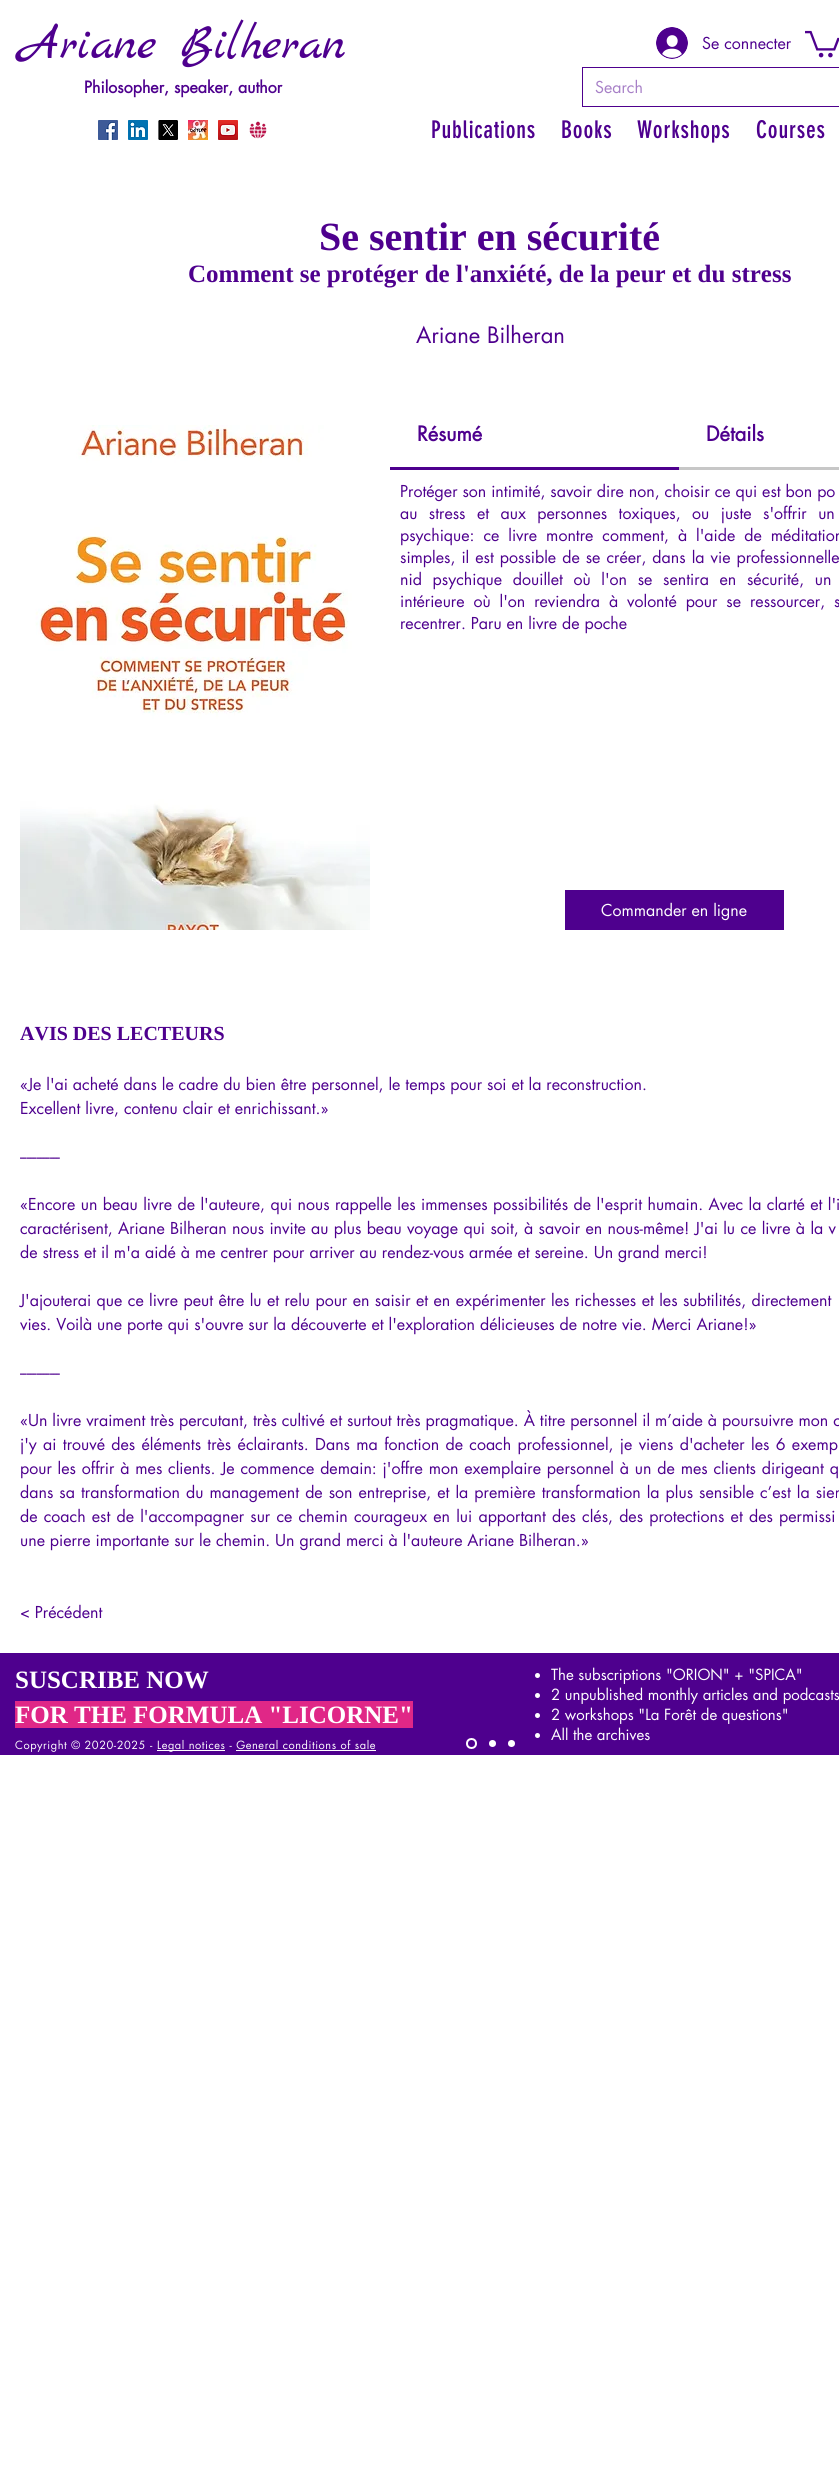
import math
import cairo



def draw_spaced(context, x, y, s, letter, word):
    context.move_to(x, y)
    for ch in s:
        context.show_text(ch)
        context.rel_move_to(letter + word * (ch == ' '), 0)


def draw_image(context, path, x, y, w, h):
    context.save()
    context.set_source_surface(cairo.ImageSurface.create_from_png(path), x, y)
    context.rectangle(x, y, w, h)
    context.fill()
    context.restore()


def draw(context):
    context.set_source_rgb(1, 1, 1)
    context.paint()
    draw_image(context, "images/1.png", 98, 120, 20, 20)
    draw_image(context, "images/2.png", 128, 120, 20, 20)
    draw_image(context, "images/3.png", 158, 120, 20, 20)
    draw_image(context, "images/4.png", 188, 120, 20, 20)
    draw_image(context, "images/5.png", 218, 120, 20, 20)
    draw_image(context, "images/6.png", 249, 121, 18, 18)
    draw_image(context, "images/7.png", 656, 27, 32, 32)
    draw_image(context, "images/8.png", 805, 30, 34, 28)
    context.rectangle(582.5, 67.5, 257, 39)
    context.set_source_rgb(78 / 255, 0, 142 / 255)
    context.set_line_width(1)
    context.stroke()
    draw_image(context, "images/9.png", 20, 425, 350, 505)
    context.rectangle(390, 467, 289, 3)
    context.fill()
    context.set_source_rgb(199 / 255, 199 / 255, 199 / 255)
    context.rectangle(679, 467, 160, 3)
    context.fill()
    context.set_source_rgb(78 / 255, 0, 142 / 255)
    context.rectangle(565, 890, 219, 40)
    context.fill()
    context.rectangle(0, 1653, 839, 102)
    context.fill()
    context.set_source_rgb(1, 1, 1)
    context.arc(537.5, 1675.5, 2.5, 0, 2 * math.pi)
    context.fill()
    context.arc(537.5, 1695.5, 2.5, 0, 2 * math.pi)
    context.fill()
    context.arc(537.5, 1715.5, 2.5, 0, 2 * math.pi)
    context.fill()
    context.arc(537.5, 1735.5, 2.5, 0, 2 * math.pi)
    context.fill()
    context.set_source_rgb(224 / 255, 39 / 255, 135 / 255)
    context.rectangle(15, 1701, 398, 27)
    context.fill()
    context.arc(471.5, 1743.5, 4.5, 0, 2 * math.pi)
    context.set_source_rgb(1, 1, 1)
    context.set_line_width(2)
    context.stroke()
    context.arc(492.5, 1743.5, 3.5, 0, 2 * math.pi)
    context.fill()
    context.arc(511.5, 1743.5, 3.5, 0, 2 * math.pi)
    context.fill()
    context.rectangle(157, 1750, 68, 1)
    context.fill()
    context.rectangle(236, 1750, 140, 1)
    context.fill()
    context.select_font_face("Marck Script")
    context.set_font_size(50)
    context.set_source_rgb(78 / 255, 0, 142 / 255)
    context.move_to(20, 58)
    context.show_text("Ariane Bilheran")
    context.select_font_face("futura", cairo.FontSlant.NORMAL, cairo.FontWeight.BOLD)
    context.set_font_size(16)
    context.move_to(84, 93)
    context.show_text("Philosopher, speaker, author")
    context.select_font_face("futura")
    context.move_to(702, 49)
    context.show_text("Se connecter")
    context.set_source_rgb(167 / 255, 128 / 255, 199 / 255)
    context.move_to(595, 93)
    context.show_text("Search")
    context.select_font_face("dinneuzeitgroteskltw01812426")
    context.set_font_size(24)
    context.set_source_rgb(78 / 255, 0, 142 / 255)
    draw_spaced(context, 431, 138, "Publications", 0.75, 0)
    draw_spaced(context, 561, 138, "Books", 0.75, 0)
    draw_spaced(context, 637, 138, "Workshops", 0.75, 0)
    draw_spaced(context, 756, 138, "Courses", 0.75, 0)
    context.select_font_face("Liberation Serif", cairo.FontSlant.NORMAL, cairo.FontWeight.BOLD)
    context.set_font_size(40)
    context.move_to(319, 250)
    context.show_text("Se sentir en sécurité")
    context.set_font_size(25)
    context.move_to(188, 282)
    context.show_text("Comment se protéger de l'anxiété, de la peur et du stress")
    context.select_font_face("futura")
    context.set_font_size(22)
    context.move_to(416, 343)
    context.show_text("Ariane Bilheran")
    context.select_font_face("futura", cairo.FontSlant.NORMAL, cairo.FontWeight.BOLD)
    context.set_font_size(20)
    context.move_to(417, 441)
    context.show_text("Résumé")
    context.move_to(706, 441)
    context.show_text("Détails")
    context.select_font_face("futura")
    context.set_font_size(16)
    context.move_to(400, 497)
    context.show_text("Protéger son intimité, savoir dire non, choisir ce qui est bon po")
    draw_spaced(context, 400, 519, "au stress et aux personnes toxiques, ou juste s'offrir un", 0, 6.5)
    draw_spaced(context, 400, 541, "psychique: ce livre montre comment, à l'aide de méditation", 0, 4)
    draw_spaced(context, 400, 563, "simples, il est possible de se créer, dans la vie professionnelle", 0, 1.1)
    draw_spaced(context, 400, 585, "nid psychique douillet où l'on se sentira en sécurité, un", 0, 5.75)
    draw_spaced(context, 400, 607, "intérieure où l'on reviendra à volonté pour se ressourcer, s", 0, 4)
    context.move_to(400, 629)
    context.show_text("recentrer. Paru en livre de poche")
    context.set_source_rgb(1, 1, 1)
    context.move_to(601, 916)
    context.show_text("Commander en ligne")
    context.select_font_face("Liberation Serif", cairo.FontSlant.NORMAL, cairo.FontWeight.BOLD)
    context.set_font_size(20)
    context.set_source_rgb(78 / 255, 0, 142 / 255)
    context.move_to(20, 1040)
    context.show_text("AVIS DES LECTEURS")
    context.select_font_face("futura")
    context.set_font_size(16)
    context.move_to(20, 1090)
    context.show_text("«Je l'ai acheté dans le cadre du bien être personnel, le temps pour soi et la reconstruction.")
    context.move_to(20, 1114)
    context.show_text("Excellent livre, contenu clair et enrichissant.»")
    context.move_to(20, 1162)
    context.show_text("------------")
    draw_spaced(context, 20, 1210, "«Encore un beau livre de l'auteure, qui nous rappelle les immenses possibilités de l'esprit humain. Avec la clarté et l'i", 0, 0.5)
    draw_spaced(context, 20, 1234, "caractérisent, Ariane Bilheran nous invite au plus beau voyage qui soit, à savoir en nous-même! J'ai lu ce livre à la v", 0, 0.4)
    context.move_to(20, 1258)
    context.show_text("de stress et il m'a aidé à me centrer pour arriver au rendez-vous armée et sereine. Un grand merci!")
    draw_spaced(context, 20, 1306, "J'ajouterai que ce livre peut être lu et relu pour en saisir et en expérimenter les richesses et les subtilités, directement", 0, 0.5)
    context.move_to(20, 1330)
    context.show_text("vies. Voilà une porte qui s'ouvre sur la découverte et l'exploration délicieuses de notre vie. Merci Ariane!»")
    context.move_to(20, 1378)
    context.show_text("------------")
    context.move_to(20, 1426)
    context.show_text("«Un livre vraiment très percutant, très cultivé et surtout très pragmatique. À titre personnel il m’aide à poursuivre mon c")
    draw_spaced(context, 20, 1450, "j'y ai trouvé des éléments très éclairants. Dans ma fonction de coach professionnel, je viens d'acheter les 6 exemp", 0, 1.4)
    draw_spaced(context, 20, 1474, "pour les offrir à mes clients. Je commence demain: j'offre mon exemplaire personnel à un de mes clients dirigeant q", 0, 0.9)
    draw_spaced(context, 20, 1498, "dans sa transformation du management de son entreprise, et la première transformation la plus sensible c’est la sien", 0, 1.1)
    draw_spaced(context, 20, 1522, "de coach est de l'accompagner sur ce chemin courageux en lui apportant des clés, des protections et des permissi", 0, 1.25)
    context.move_to(20, 1546)
    context.show_text("une pierre importante sur le chemin. Un grand merci à l'auteure Ariane Bilheran.»")
    context.move_to(20, 1618)
    context.show_text("< Précédent")
    context.select_font_face("Liberation Serif", cairo.FontSlant.NORMAL, cairo.FontWeight.BOLD)
    context.set_font_size(25)
    context.set_source_rgb(1, 1, 1)
    context.move_to(15, 1688)
    context.show_text("SUSCRIBE NOW")
    context.select_font_face("futura")
    context.set_font_size(15)
    context.move_to(551, 1680)
    context.show_text("The subscriptions \"ORION\" + \"SPICA\"")
    context.move_to(551, 1700)
    context.show_text("2 unpublished monthly articles and podcasts")
    context.move_to(551, 1720)
    context.show_text("2 workshops \"La Forêt de questions\"")
    context.move_to(551, 1740)
    context.show_text("All the archives")
    context.select_font_face("Liberation Serif", cairo.FontSlant.NORMAL, cairo.FontWeight.BOLD)
    context.set_font_size(25)
    context.move_to(15, 1723)
    context.show_text("FOR THE FORMULA \"LICORNE\"")
    context.select_font_face("futura")
    context.set_font_size(11)
    draw_spaced(context, 15, 1749, "Copyright © 2020-2025 -", 0.55, 0)
    draw_spaced(context, 157, 1749, "Legal notices - General conditions of sale", 0.55, 0)


surface = cairo.ImageSurface(cairo.Format.RGB24, 839, 2475)
context = cairo.Context(surface)
options = cairo.FontOptions()
options.set_hint_metrics(cairo.HintMetrics.OFF)
options.set_hint_style(cairo.HintStyle.NONE)
context.set_font_options(options)
context.set_miter_limit(4)
draw(context)
surface.write_to_png("out.png")
